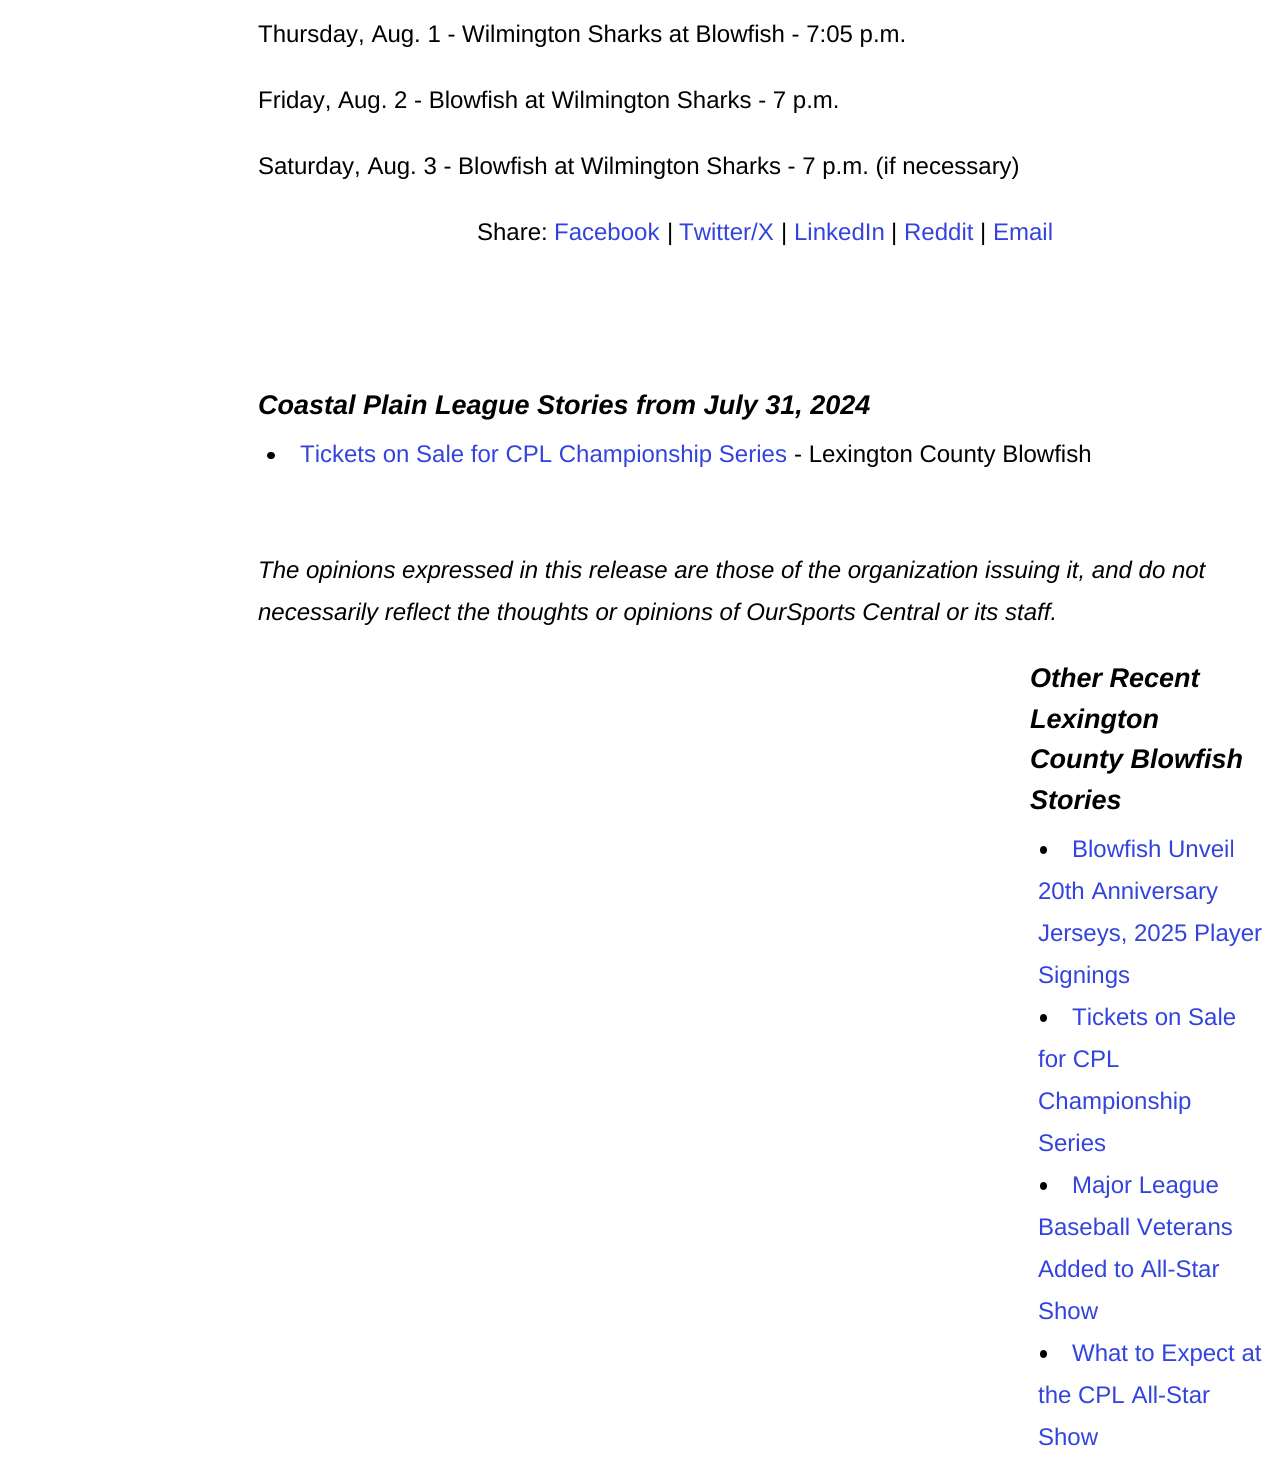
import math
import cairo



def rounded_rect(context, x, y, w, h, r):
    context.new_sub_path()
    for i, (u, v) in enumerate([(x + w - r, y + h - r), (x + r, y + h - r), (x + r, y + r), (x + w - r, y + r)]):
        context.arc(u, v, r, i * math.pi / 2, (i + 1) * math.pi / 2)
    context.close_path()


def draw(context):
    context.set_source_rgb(1, 1, 1)
    context.paint()
    context.set_source_rgb(0, 0, 0)
    rounded_rect(context, 267, 452, 8, 7, 3.5)
    context.fill()
    rounded_rect(context, 1040, 846, 7, 8, 3.5)
    context.fill()
    rounded_rect(context, 1040, 1014, 7, 8, 3.5)
    context.fill()
    rounded_rect(context, 1040, 1182, 7, 8, 3.5)
    context.fill()
    rounded_rect(context, 1040, 1350, 7, 8, 3.5)
    context.fill()
    context.select_font_face("Liberation Sans")
    context.set_font_size(24)
    context.move_to(258, 42)
    context.show_text("Thursday, Aug. 1 - Wilmington Sharks at Blowfish - 7:05 p.m.")
    context.move_to(258, 108)
    context.show_text("Friday, Aug. 2 - Blowfish at Wilmington Sharks - 7 p.m.")
    context.move_to(258, 174)
    context.show_text("Saturday, Aug. 3 - Blowfish at Wilmington Sharks - 7 p.m. (if necessary)")
    context.move_to(477, 240)
    context.show_text("Share:")
    context.set_source_rgb(51 / 255, 68 / 255, 221 / 255)
    context.move_to(554, 240)
    context.show_text("Facebook")
    context.set_source_rgb(0, 0, 0)
    context.move_to(667, 240)
    context.show_text("|")
    context.set_source_rgb(51 / 255, 68 / 255, 221 / 255)
    context.move_to(679, 240)
    context.show_text("Twitter/X")
    context.set_source_rgb(0, 0, 0)
    context.move_to(781, 240)
    context.show_text("|")
    context.set_source_rgb(51 / 255, 68 / 255, 221 / 255)
    context.move_to(794, 240)
    context.show_text("LinkedIn")
    context.set_source_rgb(0, 0, 0)
    context.move_to(891, 240)
    context.show_text("|")
    context.set_source_rgb(51 / 255, 68 / 255, 221 / 255)
    context.move_to(904, 240)
    context.show_text("Reddit")
    context.set_source_rgb(0, 0, 0)
    context.move_to(980, 240)
    context.show_text("|")
    context.set_source_rgb(51 / 255, 68 / 255, 221 / 255)
    context.move_to(993, 240)
    context.show_text("Email")
    context.select_font_face("Liberation Sans", cairo.FontSlant.ITALIC, cairo.FontWeight.BOLD)
    context.set_font_size(27)
    context.set_source_rgb(0, 0, 0)
    context.move_to(258, 414)
    context.show_text("Coastal Plain League Stories from July 31, 2024")
    context.select_font_face("Liberation Sans")
    context.set_font_size(24)
    context.set_source_rgb(51 / 255, 68 / 255, 221 / 255)
    context.move_to(300, 462)
    context.show_text("Tickets on Sale for CPL Championship Series")
    context.set_source_rgb(0, 0, 0)
    context.move_to(794, 462)
    context.show_text("- Lexington County Blowfish")
    context.select_font_face("Liberation Sans", cairo.FontSlant.ITALIC)
    context.move_to(258, 578)
    context.show_text("The opinions expressed in this release are those of the organization issuing it, and do not")
    context.move_to(258, 620)
    context.show_text("necessarily reflect the thoughts or opinions of OurSports Central or its staff.")
    context.select_font_face("Liberation Sans", cairo.FontSlant.ITALIC, cairo.FontWeight.BOLD)
    context.set_font_size(27)
    context.move_to(1030, 687)
    context.show_text("Other Recent")
    context.move_to(1030, 728)
    context.show_text("Lexington")
    context.move_to(1030, 768)
    context.show_text("County Blowfish")
    context.move_to(1030, 809)
    context.show_text("Stories")
    context.select_font_face("Liberation Sans")
    context.set_font_size(24)
    context.set_source_rgb(51 / 255, 68 / 255, 221 / 255)
    context.move_to(1072, 857)
    context.show_text("Blowfish Unveil")
    context.move_to(1038, 899)
    context.show_text("20th Anniversary")
    context.move_to(1038, 941)
    context.show_text("Jerseys, 2025 Player")
    context.move_to(1038, 983)
    context.show_text("Signings")
    context.move_to(1072, 1025)
    context.show_text("Tickets on Sale")
    context.move_to(1038, 1067)
    context.show_text("for CPL")
    context.move_to(1038, 1109)
    context.show_text("Championship")
    context.move_to(1038, 1151)
    context.show_text("Series")
    context.move_to(1072, 1193)
    context.show_text("Major League")
    context.move_to(1038, 1235)
    context.show_text("Baseball Veterans")
    context.move_to(1038, 1277)
    context.show_text("Added to All-Star")
    context.move_to(1038, 1319)
    context.show_text("Show")
    context.move_to(1072, 1361)
    context.show_text("What to Expect at")
    context.move_to(1038, 1403)
    context.show_text("the CPL All-Star")
    context.move_to(1038, 1445)
    context.show_text("Show")


surface = cairo.ImageSurface(cairo.Format.RGB24, 1277, 1475)
context = cairo.Context(surface)
options = cairo.FontOptions()
options.set_hint_metrics(cairo.HintMetrics.OFF)
options.set_hint_style(cairo.HintStyle.NONE)
context.set_font_options(options)
context.set_miter_limit(4)
draw(context)
surface.write_to_png("out.png")
